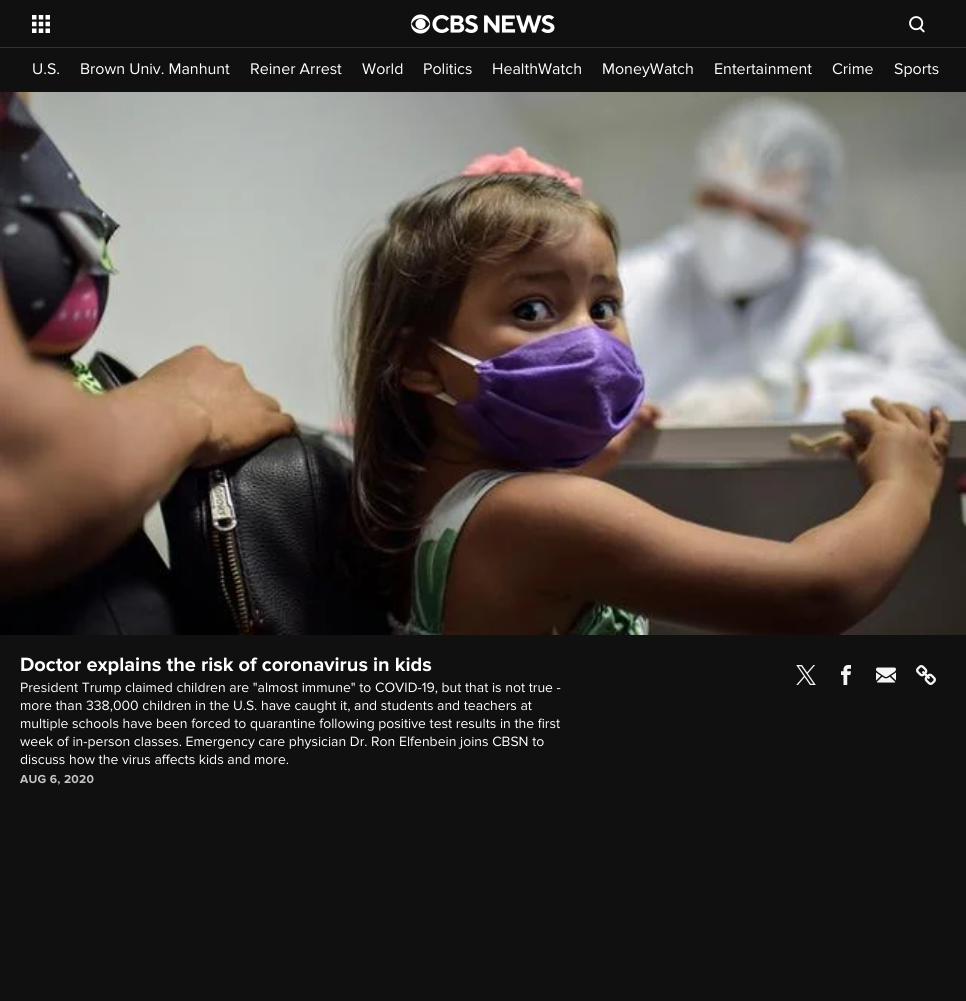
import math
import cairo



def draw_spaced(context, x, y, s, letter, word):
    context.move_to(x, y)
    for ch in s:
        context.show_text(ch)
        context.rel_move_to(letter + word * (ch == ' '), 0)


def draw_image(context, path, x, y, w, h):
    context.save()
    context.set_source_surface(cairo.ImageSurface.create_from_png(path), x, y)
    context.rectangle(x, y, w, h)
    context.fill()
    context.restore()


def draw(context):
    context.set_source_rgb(16 / 255, 16 / 255, 16 / 255)
    context.paint()
    context.set_source_rgb(50 / 255, 50 / 255, 50 / 255)
    context.rectangle(0, 47, 966, 1)
    context.fill()
    draw_image(context, "images/1.png", 32, 15, 18, 18)
    draw_image(context, "images/2.png", 411, 14, 144, 20)
    draw_image(context, "images/3.png", 909, 16, 16, 17)
    draw_image(context, "images/4.png", 0, 92, 966, 543)
    draw_image(context, "images/5.png", 796, 665, 20, 20)
    draw_image(context, "images/6.png", 841, 665, 10, 20)
    draw_image(context, "images/7.png", 876, 667, 20, 16)
    draw_image(context, "images/8.png", 916, 665, 20, 20)
    context.select_font_face("Proxima Nova")
    context.set_font_size(16)
    context.set_source_rgb(1, 1, 1)
    context.move_to(32, 74)
    context.show_text("U.S.")
    context.move_to(80, 74)
    context.show_text("Brown Univ. Manhunt")
    context.move_to(250, 74)
    context.show_text("Reiner Arrest")
    context.move_to(362, 74)
    context.show_text("World")
    context.move_to(423, 74)
    context.show_text("Politics")
    context.move_to(492, 74)
    context.show_text("HealthWatch")
    context.move_to(602, 74)
    context.show_text("MoneyWatch")
    context.move_to(714, 74)
    context.show_text("Entertainment")
    context.move_to(832, 74)
    context.show_text("Crime")
    context.move_to(894, 74)
    context.show_text("Sports")
    context.select_font_face("Proxima Nova", cairo.FontSlant.NORMAL, cairo.FontWeight.BOLD)
    context.set_font_size(20)
    context.move_to(20, 671)
    context.show_text("Doctor explains the risk of coronavirus in kids")
    context.select_font_face("Proxima Nova")
    context.set_font_size(14)
    context.move_to(20, 692)
    context.show_text("President Trump claimed children are \"almost immune\" to COVID-19, but that is not true -")
    context.move_to(20, 710)
    context.show_text("more than 338,000 children in the U.S. have caught it, and students and teachers at")
    context.move_to(20, 728)
    context.show_text("multiple schools have been forced to quarantine following positive test results in the first")
    context.move_to(20, 746)
    context.show_text("week of in-person classes. Emergency care physician Dr. Ron Elfenbein joins CBSN to")
    context.move_to(20, 764)
    context.show_text("discuss how the virus affects kids and more.")
    context.select_font_face("Proxima Nova", cairo.FontSlant.NORMAL, cairo.FontWeight.BOLD)
    context.set_font_size(12)
    context.set_source_rgb(195 / 255, 195 / 255, 195 / 255)
    draw_spaced(context, 20, 783, "AUG 6, 2020", 0.25, 0)


surface = cairo.ImageSurface(cairo.Format.RGB24, 966, 1001)
context = cairo.Context(surface)
options = cairo.FontOptions()
options.set_hint_metrics(cairo.HintMetrics.OFF)
options.set_hint_style(cairo.HintStyle.NONE)
context.set_font_options(options)
context.set_miter_limit(4)
draw(context)
surface.write_to_png("out.png")
